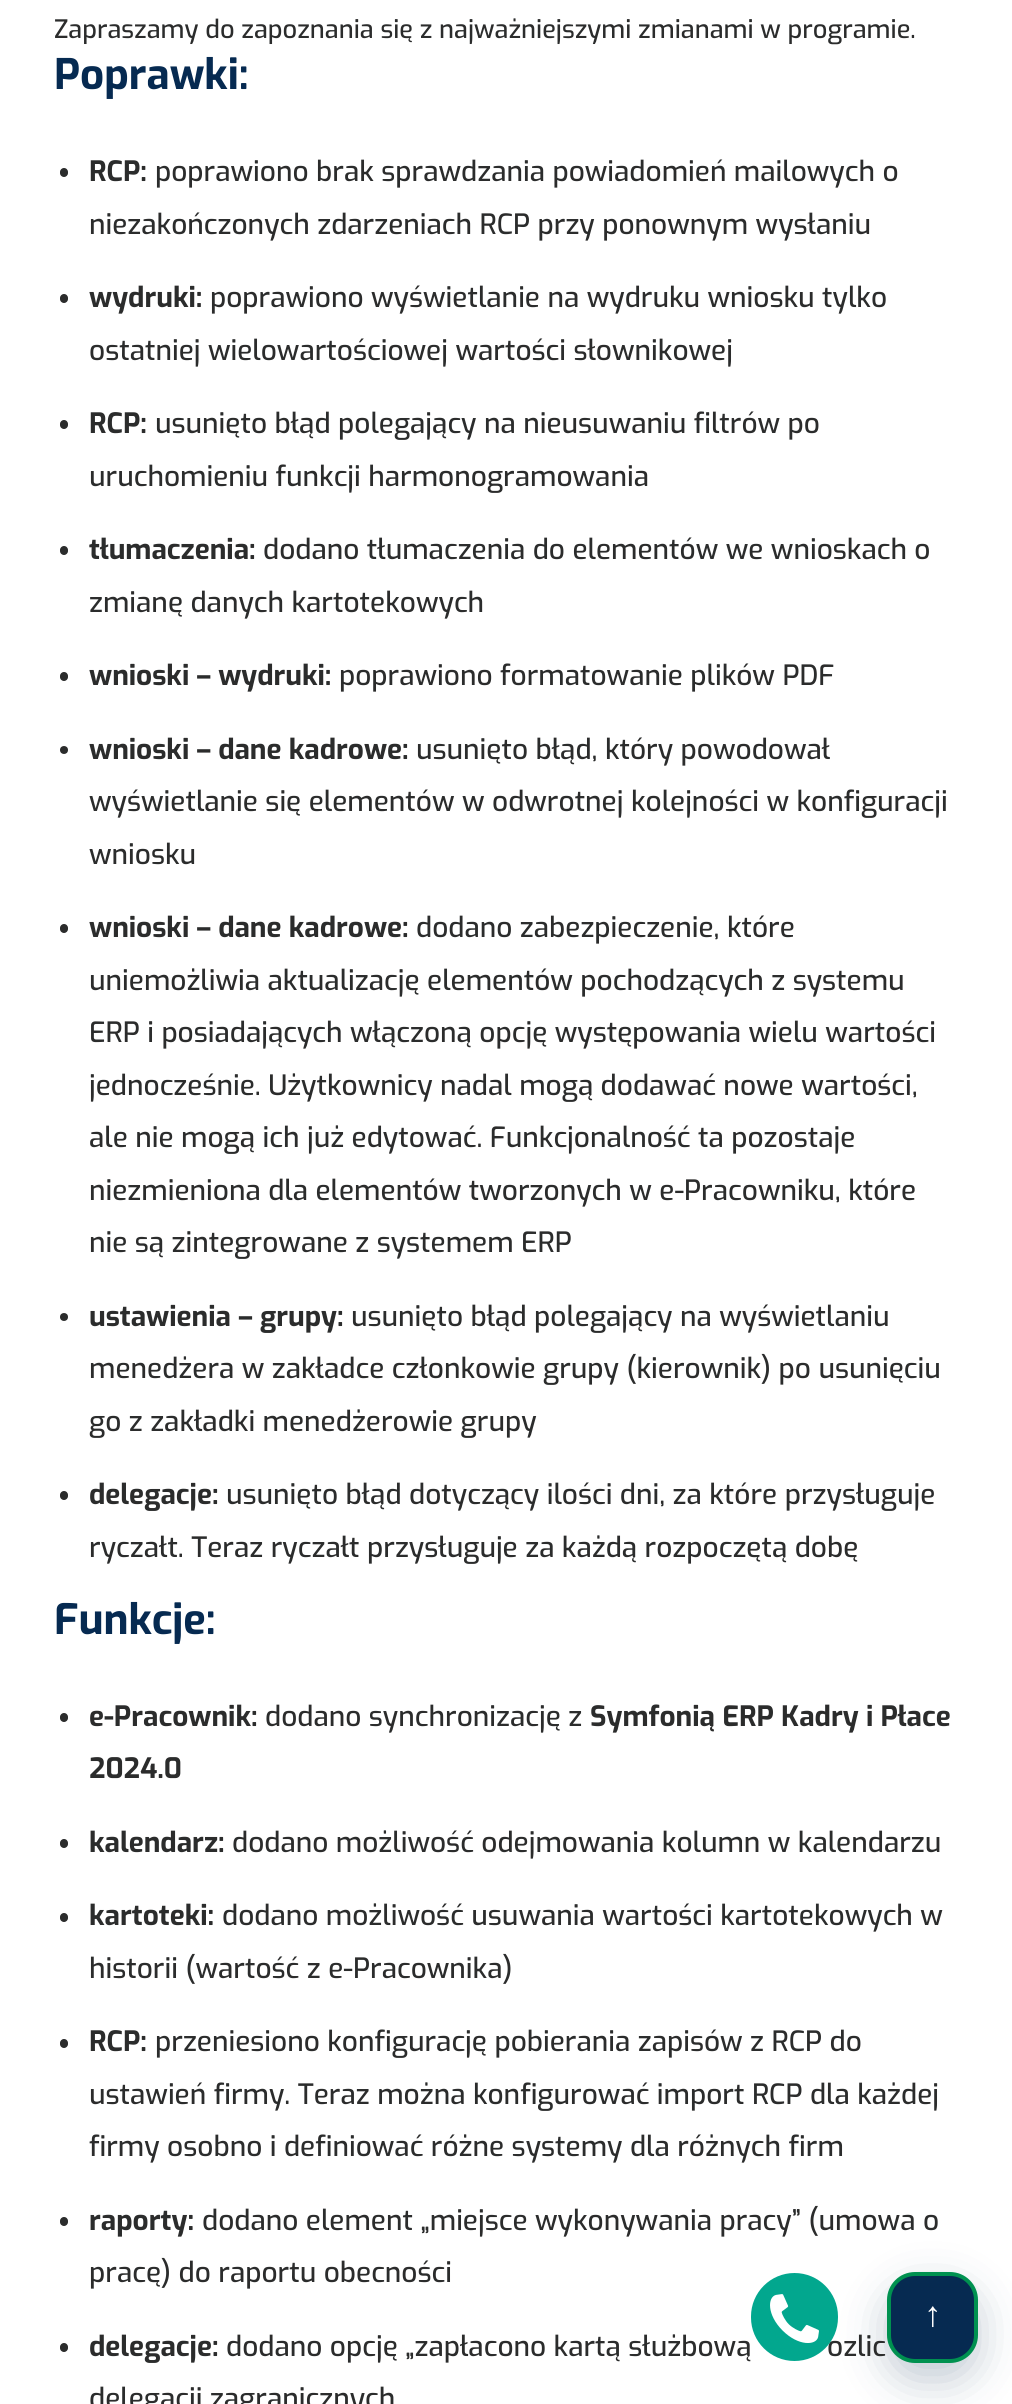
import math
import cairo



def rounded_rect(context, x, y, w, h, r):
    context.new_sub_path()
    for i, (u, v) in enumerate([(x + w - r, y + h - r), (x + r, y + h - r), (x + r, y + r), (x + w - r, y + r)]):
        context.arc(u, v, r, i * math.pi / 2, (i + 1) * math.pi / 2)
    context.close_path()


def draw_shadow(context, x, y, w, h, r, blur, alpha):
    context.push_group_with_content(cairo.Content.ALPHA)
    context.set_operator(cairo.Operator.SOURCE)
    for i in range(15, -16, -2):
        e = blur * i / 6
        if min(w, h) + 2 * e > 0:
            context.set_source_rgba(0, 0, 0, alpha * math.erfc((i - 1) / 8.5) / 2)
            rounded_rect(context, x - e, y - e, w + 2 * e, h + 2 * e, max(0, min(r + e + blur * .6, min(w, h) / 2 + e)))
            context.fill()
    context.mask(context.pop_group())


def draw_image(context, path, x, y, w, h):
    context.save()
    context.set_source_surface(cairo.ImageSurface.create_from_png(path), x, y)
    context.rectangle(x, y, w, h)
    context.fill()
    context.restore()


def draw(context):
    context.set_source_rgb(1, 1, 1)
    context.paint()
    context.set_source_rgb(43 / 255, 44 / 255, 44 / 255)
    rounded_rect(context, 60, 168, 8, 9, 4)
    context.fill()
    rounded_rect(context, 60, 294, 8, 9, 4)
    context.fill()
    rounded_rect(context, 60, 420, 8, 9, 4)
    context.fill()
    rounded_rect(context, 60, 546, 8, 9, 4)
    context.fill()
    rounded_rect(context, 60, 672, 8, 9, 4)
    context.fill()
    context.arc(64, 750, 4, 0, 2 * math.pi)
    context.fill()
    rounded_rect(context, 60, 924, 8, 9, 4)
    context.fill()
    context.arc(64, 1317, 4, 0, 2 * math.pi)
    context.fill()
    rounded_rect(context, 60, 1491, 8, 9, 4)
    context.fill()
    rounded_rect(context, 60, 1713, 8, 9, 4)
    context.fill()
    rounded_rect(context, 60, 1839, 8, 9, 4)
    context.fill()
    rounded_rect(context, 60, 1913, 8, 9, 4)
    context.fill()
    rounded_rect(context, 60, 2039, 8, 9, 4)
    context.fill()
    rounded_rect(context, 60, 2217, 8, 9, 4)
    context.fill()
    rounded_rect(context, 60, 2343, 8, 9, 4)
    context.fill()
    context.set_source_rgb(6 / 255, 42 / 255, 81 / 255)
    draw_shadow(context, 887, 2289, 91, 91, 28, 22, 0.25)
    context.set_source_rgb(6 / 255, 42 / 255, 81 / 255)
    rounded_rect(context, 889, 2274, 87, 87, 26)
    context.fill_preserve()
    context.set_source_rgb(0, 145 / 255, 80 / 255)
    context.set_line_width(4)
    context.stroke()
    context.select_font_face("Exo Medium")
    context.set_font_size(25.4)
    context.set_source_rgb(43 / 255, 44 / 255, 44 / 255)
    context.move_to(54, 38)
    context.show_text("Zapraszamy do zapoznania się z najważniejszymi zmianami w programie.")
    context.select_font_face("Exo", cairo.FontSlant.NORMAL, cairo.FontWeight.BOLD)
    context.set_font_size(42)
    context.set_source_rgb(6 / 255, 42 / 255, 81 / 255)
    context.move_to(54, 89)
    context.show_text("Poprawki:")
    context.set_font_size(28)
    context.set_source_rgb(43 / 255, 44 / 255, 44 / 255)
    context.move_to(89, 181)
    context.show_text("RCP:")
    context.select_font_face("Exo Medium")
    context.move_to(155, 181)
    context.show_text("poprawiono brak sprawdzania powiadomień mailowych o")
    context.move_to(89, 234)
    context.show_text("niezakończonych zdarzeniach RCP przy ponownym wysłaniu")
    context.select_font_face("Exo", cairo.FontSlant.NORMAL, cairo.FontWeight.BOLD)
    context.move_to(89, 307)
    context.show_text("wydruki:")
    context.select_font_face("Exo Medium")
    context.move_to(210, 307)
    context.show_text("poprawiono wyświetlanie na wydruku wniosku tylko")
    context.move_to(89, 360)
    context.show_text("ostatniej wielowartościowej wartości słownikowej")
    context.select_font_face("Exo", cairo.FontSlant.NORMAL, cairo.FontWeight.BOLD)
    context.move_to(89, 433)
    context.show_text("RCP:")
    context.select_font_face("Exo Medium")
    context.move_to(155, 433)
    context.show_text("usunięto błąd polegający na nieusuwaniu filtrów po")
    context.move_to(89, 486)
    context.show_text("uruchomieniu funkcji harmonogramowania")
    context.select_font_face("Exo", cairo.FontSlant.NORMAL, cairo.FontWeight.BOLD)
    context.move_to(89, 559)
    context.show_text("tłumaczenia:")
    context.select_font_face("Exo Medium")
    context.move_to(263, 559)
    context.show_text("dodano tłumaczenia do elementów we wnioskach o")
    context.move_to(89, 612)
    context.show_text("zmianę danych kartotekowych")
    context.select_font_face("Exo", cairo.FontSlant.NORMAL, cairo.FontWeight.BOLD)
    context.move_to(89, 685)
    context.show_text("wnioski – wydruki:")
    context.select_font_face("Exo Medium")
    context.move_to(339, 685)
    context.show_text("poprawiono formatowanie plików PDF")
    context.select_font_face("Exo", cairo.FontSlant.NORMAL, cairo.FontWeight.BOLD)
    context.move_to(89, 759)
    context.show_text("wnioski – dane kadrowe:")
    context.select_font_face("Exo Medium")
    context.move_to(416, 759)
    context.show_text("usunięto błąd, który powodował")
    context.move_to(89, 811)
    context.show_text("wyświetlanie się elementów w odwrotnej kolejności w konfiguracji")
    context.move_to(89, 864)
    context.show_text("wniosku")
    context.select_font_face("Exo", cairo.FontSlant.NORMAL, cairo.FontWeight.BOLD)
    context.move_to(89, 937)
    context.show_text("wnioski – dane kadrowe:")
    context.select_font_face("Exo Medium")
    context.move_to(416, 937)
    context.show_text("dodano zabezpieczenie, które")
    context.move_to(89, 990)
    context.show_text("uniemożliwia aktualizację elementów pochodzących z systemu")
    context.move_to(89, 1042)
    context.show_text("ERP i posiadających włączoną opcję występowania wielu wartości")
    context.move_to(89, 1095)
    context.show_text("jednocześnie. Użytkownicy nadal mogą dodawać nowe wartości,")
    context.move_to(89, 1147)
    context.show_text("ale nie mogą ich już edytować. Funkcjonalność ta pozostaje")
    context.move_to(89, 1200)
    context.show_text("niezmieniona dla elementów tworzonych w e-Pracowniku, które")
    context.move_to(89, 1252)
    context.show_text("nie są zintegrowane z systemem ERP")
    context.select_font_face("Exo", cairo.FontSlant.NORMAL, cairo.FontWeight.BOLD)
    context.move_to(89, 1326)
    context.show_text("ustawienia – grupy:")
    context.select_font_face("Exo Medium")
    context.move_to(351, 1326)
    context.show_text("usunięto błąd polegający na wyświetlaniu")
    context.move_to(89, 1378)
    context.show_text("menedżera w zakładce członkowie grupy (kierownik) po usunięciu")
    context.move_to(89, 1431)
    context.show_text("go z zakładki menedżerowie grupy")
    context.select_font_face("Exo", cairo.FontSlant.NORMAL, cairo.FontWeight.BOLD)
    context.move_to(89, 1504)
    context.show_text("delegacje:")
    context.select_font_face("Exo Medium")
    context.move_to(226, 1504)
    context.show_text("usunięto błąd dotyczący ilości dni, za które przysługuje")
    context.move_to(89, 1557)
    context.show_text("ryczałt. Teraz ryczałt przysługuje za każdą rozpoczętą dobę")
    context.select_font_face("Exo", cairo.FontSlant.NORMAL, cairo.FontWeight.BOLD)
    context.set_font_size(42)
    context.set_source_rgb(6 / 255, 42 / 255, 81 / 255)
    context.move_to(54, 1634)
    context.show_text("Funkcje:")
    context.set_font_size(28)
    context.set_source_rgb(43 / 255, 44 / 255, 44 / 255)
    context.move_to(89, 1726)
    context.show_text("e-Pracownik:")
    context.select_font_face("Exo Medium")
    context.move_to(265, 1726)
    context.show_text("dodano synchronizację z")
    context.select_font_face("Exo", cairo.FontSlant.NORMAL, cairo.FontWeight.BOLD)
    context.move_to(590, 1726)
    context.show_text("Symfonią ERP Kadry i Płace")
    context.move_to(89, 1778)
    context.show_text("2024.0")
    context.move_to(89, 1852)
    context.show_text("kalendarz:")
    context.select_font_face("Exo Medium")
    context.move_to(232, 1852)
    context.show_text("dodano możliwość odejmowania kolumn w kalendarzu")
    context.select_font_face("Exo", cairo.FontSlant.NORMAL, cairo.FontWeight.BOLD)
    context.move_to(89, 1925)
    context.show_text("kartoteki:")
    context.select_font_face("Exo Medium")
    context.move_to(222, 1925)
    context.show_text("dodano możliwość usuwania wartości kartotekowych w")
    context.move_to(89, 1978)
    context.show_text("historii (wartość z e-Pracownika)")
    context.select_font_face("Exo", cairo.FontSlant.NORMAL, cairo.FontWeight.BOLD)
    context.move_to(89, 2051)
    context.show_text("RCP:")
    context.select_font_face("Exo Medium")
    context.move_to(155, 2051)
    context.show_text("przeniesiono konfigurację pobierania zapisów z RCP do")
    context.move_to(89, 2104)
    context.show_text("ustawień firmy. Teraz można konfigurować import RCP dla każdej")
    context.move_to(89, 2156)
    context.show_text("firmy osobno i definiować różne systemy dla różnych firm")
    context.select_font_face("Exo", cairo.FontSlant.NORMAL, cairo.FontWeight.BOLD)
    context.move_to(89, 2230)
    context.show_text("raporty:")
    context.select_font_face("Exo Medium")
    context.move_to(202, 2230)
    context.show_text("dodano element „miejsce wykonywania pracy” (umowa o")
    context.move_to(89, 2282)
    context.show_text("pracę) do raportu obecności")
    context.select_font_face("Exo", cairo.FontSlant.NORMAL, cairo.FontWeight.BOLD)
    context.move_to(89, 2356)
    context.show_text("delegacje:")
    context.select_font_face("Exo Medium")
    context.move_to(226, 2356)
    context.show_text("dodano opcję „zapłacono kartą służbową")
    context.move_to(827, 2356)
    context.show_text("ozlic")
    context.move_to(89, 2408)
    context.show_text("delegacji zagranicznych")
    context.set_source_rgb(2 / 255, 167 / 255, 142 / 255)
    rounded_rect(context, 751, 2273, 87, 88, 43.5)
    context.fill()
    draw_image(context, "images/1.png", 770, 2294, 49, 49)
    context.select_font_face("Liberation Sans", cairo.FontSlant.NORMAL, cairo.FontWeight.BOLD)
    context.set_font_size(35)
    context.set_source_rgb(1, 1, 1)
    context.move_to(924, 2326)
    context.show_text("↑")


surface = cairo.ImageSurface(cairo.Format.RGB24, 1012, 2404)
context = cairo.Context(surface)
options = cairo.FontOptions()
options.set_hint_metrics(cairo.HintMetrics.OFF)
options.set_hint_style(cairo.HintStyle.NONE)
context.set_font_options(options)
context.set_miter_limit(4)
draw(context)
surface.write_to_png("out.png")
